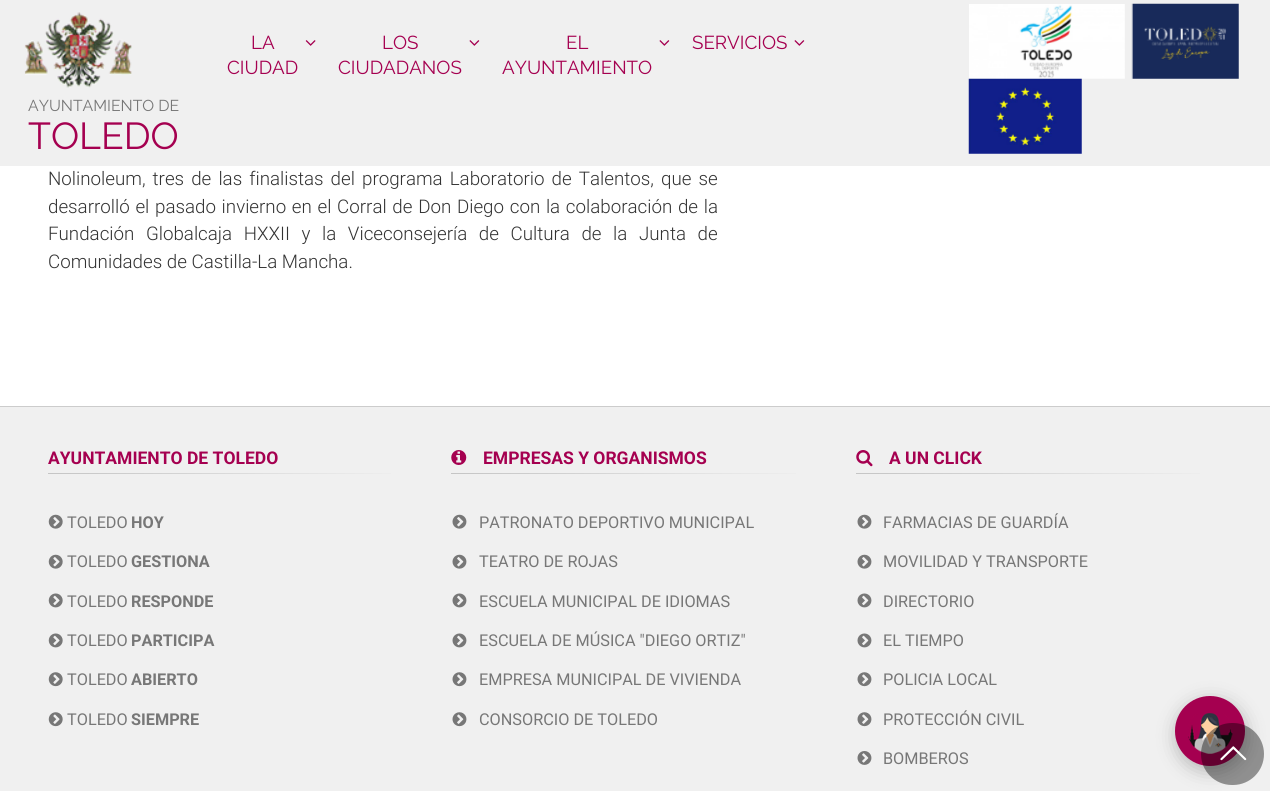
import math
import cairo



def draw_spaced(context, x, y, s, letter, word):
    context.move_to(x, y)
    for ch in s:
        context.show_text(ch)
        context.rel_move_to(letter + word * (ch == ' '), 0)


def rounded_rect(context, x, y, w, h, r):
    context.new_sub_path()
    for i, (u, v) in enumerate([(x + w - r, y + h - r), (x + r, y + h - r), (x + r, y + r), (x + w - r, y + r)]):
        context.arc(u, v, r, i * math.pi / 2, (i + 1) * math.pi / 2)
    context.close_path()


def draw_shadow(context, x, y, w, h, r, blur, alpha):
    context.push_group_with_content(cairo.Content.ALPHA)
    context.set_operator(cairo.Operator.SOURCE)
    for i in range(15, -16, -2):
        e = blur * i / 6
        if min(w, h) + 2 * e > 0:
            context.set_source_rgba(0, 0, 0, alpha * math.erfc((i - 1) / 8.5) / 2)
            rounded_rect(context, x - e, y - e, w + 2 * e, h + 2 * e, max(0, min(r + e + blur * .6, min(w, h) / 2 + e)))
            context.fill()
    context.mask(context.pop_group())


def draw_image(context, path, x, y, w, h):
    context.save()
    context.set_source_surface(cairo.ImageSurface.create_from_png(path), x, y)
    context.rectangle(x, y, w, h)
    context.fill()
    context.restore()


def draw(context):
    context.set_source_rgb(1, 1, 1)
    context.paint()
    context.set_source_rgb(240 / 255, 240 / 255, 240 / 255)
    context.rectangle(0, 0, 1270, 166)
    context.fill()
    draw_image(context, "images/1.png", 305, 40, 11, 6)
    draw_image(context, "images/2.png", 469, 40, 11, 6)
    draw_image(context, "images/2.png", 659, 40, 11, 6)
    draw_image(context, "images/2.png", 794, 40, 11, 6)
    draw_image(context, "images/3.png", 969, 4, 156, 75)
    draw_image(context, "images/4.png", 1131, 3, 108, 76)
    context.set_source_rgb(83 / 255, 95 / 255, 130 / 255)
    context.rectangle(1238, 4, 1, 7)
    context.fill()
    draw_image(context, "images/5.png", 968, 78, 114, 76)
    draw_image(context, "images/6.png", 24, 12, 108, 76)
    context.set_source_rgb(240 / 255, 240 / 255, 240 / 255)
    context.rectangle(0, 407, 1270, 384)
    context.fill()
    context.set_source_rgb(204 / 255, 204 / 255, 204 / 255)
    context.rectangle(0, 406, 1270, 1)
    context.fill()
    gradient = cairo.LinearGradient(48, 473, 414, 473)
    gradient.add_color_stop_rgba(0, 197 / 255, 197 / 255, 197 / 255, 1)
    gradient.add_color_stop_rgba(0.35, 211 / 255, 211 / 255, 211 / 255, 1)
    gradient.add_color_stop_rgba(0.7, 228 / 255, 228 / 255, 228 / 255, 1)
    gradient.add_color_stop_rgba(1, 240 / 255, 240 / 255, 240 / 255, 1)
    context.set_source(gradient)
    context.rectangle(48, 473, 343, 1)
    context.fill()
    draw_image(context, "images/7.png", 48, 514, 15, 15)
    draw_image(context, "images/7.png", 48, 554, 15, 15)
    draw_image(context, "images/8.png", 48, 593, 15, 15)
    draw_image(context, "images/8.png", 48, 633, 15, 15)
    draw_image(context, "images/9.png", 48, 672, 15, 15)
    draw_image(context, "images/9.png", 48, 712, 15, 15)
    draw_image(context, "images/10.png", 451, 450, 16, 15)
    gradient = cairo.LinearGradient(451, 473, 819, 473)
    gradient.add_color_stop_rgba(0, 197 / 255, 197 / 255, 197 / 255, 1)
    gradient.add_color_stop_rgba(0.35, 211 / 255, 211 / 255, 211 / 255, 1)
    gradient.add_color_stop_rgba(0.7, 228 / 255, 228 / 255, 228 / 255, 1)
    gradient.add_color_stop_rgba(1, 240 / 255, 240 / 255, 240 / 255, 1)
    context.set_source(gradient)
    context.rectangle(451, 473, 345, 1)
    context.fill()
    draw_image(context, "images/11.png", 452, 514, 15, 15)
    draw_image(context, "images/11.png", 452, 554, 15, 15)
    draw_image(context, "images/12.png", 452, 593, 15, 15)
    draw_image(context, "images/12.png", 452, 633, 15, 15)
    draw_image(context, "images/13.png", 452, 672, 15, 15)
    draw_image(context, "images/13.png", 452, 712, 15, 15)
    draw_image(context, "images/14.png", 856, 450, 17, 17)
    gradient = cairo.LinearGradient(856, 473, 1223, 473)
    gradient.add_color_stop_rgba(0, 197 / 255, 197 / 255, 197 / 255, 1)
    gradient.add_color_stop_rgba(0.35, 211 / 255, 211 / 255, 211 / 255, 1)
    gradient.add_color_stop_rgba(0.7, 228 / 255, 228 / 255, 228 / 255, 1)
    gradient.add_color_stop_rgba(1, 240 / 255, 240 / 255, 240 / 255, 1)
    context.set_source(gradient)
    context.rectangle(856, 473, 344, 1)
    context.fill()
    draw_image(context, "images/11.png", 857, 514, 15, 15)
    draw_image(context, "images/11.png", 857, 554, 15, 15)
    draw_image(context, "images/12.png", 857, 593, 15, 15)
    draw_image(context, "images/12.png", 857, 633, 15, 15)
    draw_image(context, "images/13.png", 857, 672, 15, 15)
    draw_image(context, "images/13.png", 857, 712, 15, 15)
    draw_image(context, "images/15.png", 857, 751, 15, 14)
    context.set_source_rgb(0, 0, 0)
    draw_shadow(context, 1176, 701, 70, 70, 35, 9.5, 0.24)
    context.set_source_rgb(165 / 255, 0, 80 / 255)
    context.arc(1210, 731, 35, 0, 2 * math.pi)
    context.fill()
    draw_image(context, "images/16.png", 1188, 713, 45, 41)
    context.set_source_rgba(0, 0, 0, 0.4)
    rounded_rect(context, 1201, 723, 63, 62, 31)
    context.fill()
    draw_image(context, "images/17.png", 1220, 746, 27, 15)
    context.select_font_face("Raleway")
    context.set_font_size(18.75)
    context.set_source_rgb(165 / 255, 0, 80 / 255)
    context.move_to(251, 49)
    context.show_text("LA")
    context.move_to(227, 74)
    context.show_text("CIUDAD")
    context.move_to(382, 49)
    context.show_text("LOS")
    context.move_to(338, 74)
    context.show_text("CIUDADANOS")
    context.move_to(566, 49)
    context.show_text("EL")
    context.move_to(502, 74)
    context.show_text("AYUNTAMIENTO")
    context.move_to(692, 49)
    context.show_text("SERVICIOS")
    context.set_font_size(15.75)
    context.set_source_rgb(119 / 255, 119 / 255, 119 / 255)
    context.move_to(28, 111)
    context.show_text("AYUNTAMIENTO DE")
    context.set_font_size(37.5)
    context.set_source_rgb(165 / 255, 0, 80 / 255)
    context.move_to(28, 149)
    context.show_text("TOLEDO")
    context.select_font_face("Roboto Light")
    context.set_font_size(18.75)
    context.set_source_rgb(51 / 255, 51 / 255, 51 / 255)
    draw_spaced(context, 48, 185, "Nolinoleum, tres de las finalistas del programa Laboratorio de Talentos, que se", 0, 2.5)
    draw_spaced(context, 48, 213, "desarrolló el pasado invierno en el Corral de Don Diego con la colaboración de la", 0, 1.1)
    draw_spaced(context, 48, 240, "Fundación Globalcaja HXXII y la Viceconsejería de Cultura de la Junta de", 0, 7)
    context.move_to(48, 268)
    context.show_text("Comunidades de Castilla-La Mancha.")
    context.select_font_face("Roboto", cairo.FontSlant.NORMAL, cairo.FontWeight.BOLD)
    context.set_font_size(17.5)
    context.set_source_rgb(165 / 255, 0, 80 / 255)
    context.move_to(48, 464)
    context.show_text("AYUNTAMIENTO DE TOLEDO")
    context.select_font_face("Roboto")
    context.set_font_size(16.25)
    context.set_source_rgb(119 / 255, 119 / 255, 119 / 255)
    context.move_to(67, 528)
    context.show_text("TOLEDO")
    context.select_font_face("Roboto", cairo.FontSlant.NORMAL, cairo.FontWeight.BOLD)
    context.move_to(131, 528)
    context.show_text("HOY")
    context.select_font_face("Roboto")
    context.move_to(67, 567)
    context.show_text("TOLEDO")
    context.select_font_face("Roboto", cairo.FontSlant.NORMAL, cairo.FontWeight.BOLD)
    context.move_to(131, 567)
    context.show_text("GESTIONA")
    context.select_font_face("Roboto")
    context.move_to(67, 607)
    context.show_text("TOLEDO")
    context.select_font_face("Roboto", cairo.FontSlant.NORMAL, cairo.FontWeight.BOLD)
    context.move_to(131, 607)
    context.show_text("RESPONDE")
    context.select_font_face("Roboto")
    context.move_to(67, 646)
    context.show_text("TOLEDO")
    context.select_font_face("Roboto", cairo.FontSlant.NORMAL, cairo.FontWeight.BOLD)
    context.move_to(131, 646)
    context.show_text("PARTICIPA")
    context.select_font_face("Roboto")
    context.move_to(67, 685)
    context.show_text("TOLEDO")
    context.select_font_face("Roboto", cairo.FontSlant.NORMAL, cairo.FontWeight.BOLD)
    context.move_to(131, 685)
    context.show_text("ABIERTO")
    context.select_font_face("Roboto")
    context.move_to(67, 725)
    context.show_text("TOLEDO")
    context.select_font_face("Roboto", cairo.FontSlant.NORMAL, cairo.FontWeight.BOLD)
    context.move_to(131, 725)
    context.show_text("SIEMPRE")
    context.set_font_size(17.5)
    context.set_source_rgb(165 / 255, 0, 80 / 255)
    context.move_to(483, 464)
    context.show_text("EMPRESAS Y ORGANISMOS")
    context.select_font_face("Roboto")
    context.set_font_size(16.25)
    context.set_source_rgb(119 / 255, 119 / 255, 119 / 255)
    context.move_to(479, 528)
    context.show_text("PATRONATO DEPORTIVO MUNICIPAL")
    context.move_to(479, 567)
    context.show_text("TEATRO DE ROJAS")
    context.move_to(479, 607)
    context.show_text("ESCUELA MUNICIPAL DE IDIOMAS")
    context.move_to(479, 646)
    context.show_text("ESCUELA DE MÚSICA \"DIEGO ORTIZ\"")
    context.move_to(479, 685)
    context.show_text("EMPRESA MUNICIPAL DE VIVIENDA")
    context.move_to(479, 725)
    context.show_text("CONSORCIO DE TOLEDO")
    context.select_font_face("Roboto", cairo.FontSlant.NORMAL, cairo.FontWeight.BOLD)
    context.set_font_size(17.5)
    context.set_source_rgb(165 / 255, 0, 80 / 255)
    context.move_to(889, 464)
    context.show_text("A UN CLICK")
    context.select_font_face("Roboto")
    context.set_font_size(16.25)
    context.set_source_rgb(119 / 255, 119 / 255, 119 / 255)
    context.move_to(883, 528)
    context.show_text("FARMACIAS DE GUARDÍA")
    context.move_to(883, 567)
    context.show_text("MOVILIDAD Y TRANSPORTE")
    context.move_to(883, 607)
    context.show_text("DIRECTORIO")
    context.move_to(883, 646)
    context.show_text("EL TIEMPO")
    context.move_to(883, 685)
    context.show_text("POLICIA LOCAL")
    context.move_to(883, 725)
    context.show_text("PROTECCIÓN CIVIL")
    context.move_to(883, 764)
    context.show_text("BOMBEROS")


surface = cairo.ImageSurface(cairo.Format.RGB24, 1270, 791)
context = cairo.Context(surface)
options = cairo.FontOptions()
options.set_hint_metrics(cairo.HintMetrics.OFF)
options.set_hint_style(cairo.HintStyle.NONE)
context.set_font_options(options)
context.set_miter_limit(4)
draw(context)
surface.write_to_png("out.png")
